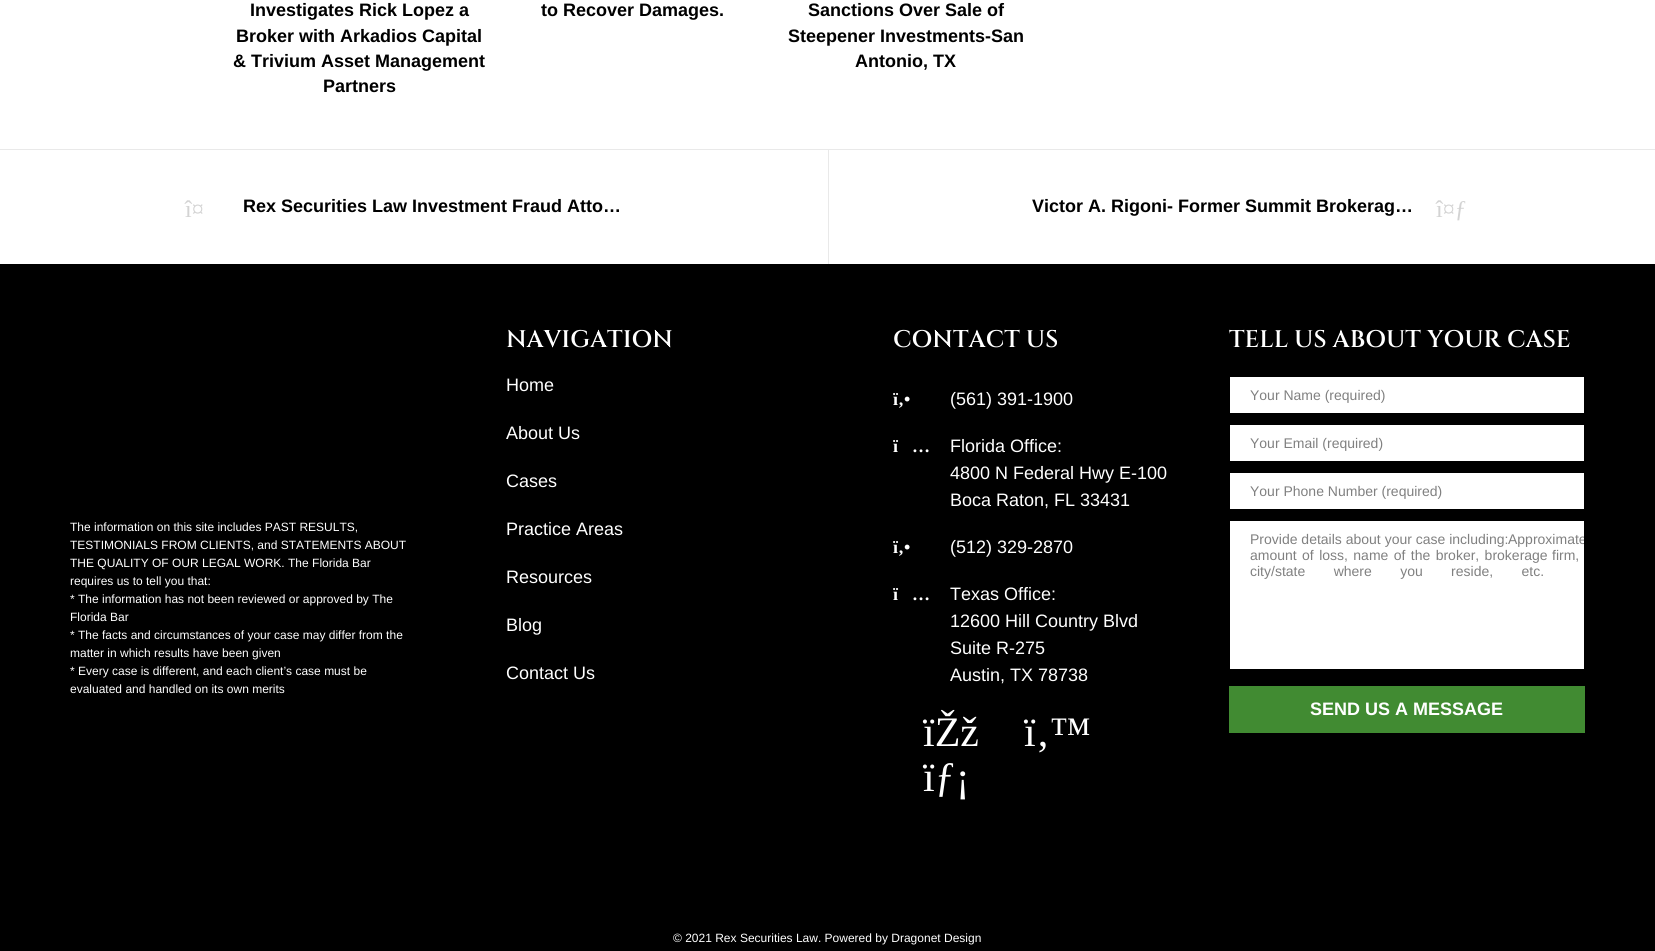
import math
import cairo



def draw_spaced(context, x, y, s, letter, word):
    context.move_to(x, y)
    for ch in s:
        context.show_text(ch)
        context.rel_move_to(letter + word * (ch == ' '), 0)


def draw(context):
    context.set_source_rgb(0, 0, 0)
    context.paint()
    context.set_source_rgb(1, 1, 1)
    context.rectangle(0, 0, 1655, 264)
    context.fill()
    context.set_source_rgb(233 / 255, 233 / 255, 233 / 255)
    context.rectangle(0, 149, 1655, 1)
    context.fill()
    context.rectangle(828, 150, 1, 114)
    context.fill()
    context.set_source_rgb(1, 1, 1)
    context.rectangle(1230, 377, 354, 36)
    context.fill()
    context.rectangle(1230, 425, 354, 36)
    context.fill()
    context.rectangle(1230, 473, 354, 36)
    context.fill()
    context.rectangle(1230, 521, 354, 148)
    context.fill()
    context.set_source_rgb(65 / 255, 139 / 255, 50 / 255)
    context.rectangle(1229, 686, 356, 47)
    context.fill()
    context.select_font_face("Liberation Sans", cairo.FontSlant.NORMAL, cairo.FontWeight.BOLD)
    context.set_font_size(18)
    context.set_source_rgb(0, 0, 0)
    context.move_to(250, 16)
    context.show_text("Investigates Rick Lopez a")
    context.move_to(236, 42)
    context.show_text("Broker with Arkadios Capital")
    context.move_to(233, 67)
    context.show_text("& Trivium Asset Management")
    context.move_to(323, 92)
    context.show_text("Partners")
    context.move_to(541, 16)
    context.show_text("to Recover Damages.")
    context.move_to(808, 16)
    context.show_text("Sanctions Over Sale of")
    context.move_to(788, 42)
    context.show_text("Steepener Investments-San")
    context.move_to(855, 67)
    context.show_text("Antonio, TX")
    context.select_font_face("Liberation Serif")
    context.set_font_size(24)
    context.set_source_rgb(211 / 255, 211 / 255, 211 / 255)
    context.move_to(185, 217)
    context.show_text("î¤")
    context.select_font_face("Liberation Sans", cairo.FontSlant.NORMAL, cairo.FontWeight.BOLD)
    context.set_font_size(18)
    context.set_source_rgb(0, 0, 0)
    context.move_to(243, 212)
    context.show_text("Rex Securities Law Investment Fraud Atto…")
    context.move_to(1032, 212)
    context.show_text("Victor A. Rigoni- Former Summit Brokerag…")
    context.select_font_face("Liberation Serif")
    context.set_font_size(24)
    context.set_source_rgb(211 / 255, 211 / 255, 211 / 255)
    context.move_to(1436, 217)
    context.show_text("î¤ƒ")
    context.select_font_face("Liberation Sans")
    context.set_font_size(12)
    context.set_source_rgb(1, 1, 1)
    context.move_to(70, 531)
    context.show_text("The information on this site includes PAST RESULTS,")
    context.move_to(70, 549)
    context.show_text("TESTIMONIALS FROM CLIENTS, and STATEMENTS ABOUT")
    context.move_to(70, 567)
    context.show_text("THE QUALITY OF OUR LEGAL WORK. The Florida Bar")
    context.move_to(70, 585)
    context.show_text("requires us to tell you that:")
    context.move_to(70, 603)
    context.show_text("* The information has not been reviewed or approved by The")
    context.move_to(70, 621)
    context.show_text("Florida Bar")
    context.move_to(70, 639)
    context.show_text("* The facts and circumstances of your case may differ from the")
    context.move_to(70, 657)
    context.show_text("matter in which results have been given")
    context.move_to(70, 675)
    context.show_text("* Every case is different, and each client’s case must be")
    context.move_to(70, 693)
    context.show_text("evaluated and handled on its own merits")
    context.select_font_face("Cinzel SemiBold")
    context.set_font_size(24)
    context.move_to(506, 347)
    context.show_text("NAVIGATION")
    context.select_font_face("Liberation Sans")
    context.set_font_size(18)
    context.move_to(506, 391)
    context.show_text("Home")
    context.move_to(506, 439)
    context.show_text("About Us")
    context.move_to(506, 487)
    context.show_text("Cases")
    context.move_to(506, 535)
    context.show_text("Practice Areas")
    context.move_to(506, 583)
    context.show_text("Resources")
    context.move_to(506, 631)
    context.show_text("Blog")
    context.move_to(506, 679)
    context.show_text("Contact Us")
    context.select_font_face("Cinzel SemiBold")
    context.set_font_size(24)
    context.move_to(893, 347)
    context.show_text("CONTACT US")
    context.select_font_face("Liberation Serif", cairo.FontSlant.NORMAL, cairo.FontWeight.BOLD)
    context.set_font_size(18)
    context.move_to(893, 405)
    context.show_text("ï‚•")
    context.select_font_face("Liberation Sans")
    context.move_to(950, 405)
    context.show_text("(561) 391-1900")
    context.select_font_face("Liberation Serif", cairo.FontSlant.NORMAL, cairo.FontWeight.BOLD)
    context.move_to(893, 452)
    context.show_text("ï")
    context.move_to(912, 452)
    context.show_text("…")
    context.select_font_face("Liberation Sans")
    context.move_to(950, 452)
    context.show_text("Florida Office:")
    context.move_to(950, 479)
    context.show_text("4800 N Federal Hwy E-100")
    context.move_to(950, 506)
    context.show_text("Boca Raton, FL 33431")
    context.select_font_face("Liberation Serif", cairo.FontSlant.NORMAL, cairo.FontWeight.BOLD)
    context.move_to(893, 553)
    context.show_text("ï‚•")
    context.select_font_face("Liberation Sans")
    context.move_to(950, 553)
    context.show_text("(512) 329-2870")
    context.select_font_face("Liberation Serif", cairo.FontSlant.NORMAL, cairo.FontWeight.BOLD)
    context.move_to(893, 600)
    context.show_text("ï")
    context.move_to(912, 600)
    context.show_text("…")
    context.select_font_face("Liberation Sans")
    context.move_to(950, 600)
    context.show_text("Texas Office:")
    context.move_to(950, 627)
    context.show_text("12600 Hill Country Blvd")
    context.move_to(950, 654)
    context.show_text("Suite R-275")
    context.move_to(950, 681)
    context.show_text("Austin, TX 78738")
    context.select_font_face("Liberation Serif")
    context.set_font_size(42)
    context.move_to(923, 746)
    context.show_text("ïŽž")
    context.move_to(1024, 746)
    context.show_text("ï‚™")
    context.move_to(923, 791)
    context.show_text("ïƒ¡")
    context.select_font_face("Cinzel SemiBold")
    context.set_font_size(24)
    context.move_to(1229, 347)
    context.show_text("TELL US ABOUT YOUR CASE")
    context.select_font_face("Liberation Sans")
    context.set_font_size(14)
    context.set_source_rgb(128 / 255, 128 / 255, 128 / 255)
    context.move_to(1250, 400)
    context.show_text("Your Name (required)")
    context.move_to(1250, 448)
    context.show_text("Your Email (required)")
    context.move_to(1250, 496)
    context.show_text("Your Phone Number (required)")
    context.move_to(1250, 544)
    context.show_text("Provide details about your case including:")
    context.save()
    context.rectangle(1230, 521, 354, 148)
    context.clip()
    context.move_to(1508, 544)
    context.show_text("Approximate")
    context.restore()
    draw_spaced(context, 1250, 560, "amount of loss, name of the broker, brokerage", 0, 1.5)
    context.move_to(1552, 560)
    context.show_text("firm,")
    draw_spaced(context, 1250, 576, "city/state where you reside, etc.", 0, 24.5)
    context.select_font_face("Liberation Sans", cairo.FontSlant.NORMAL, cairo.FontWeight.BOLD)
    context.set_font_size(18)
    context.set_source_rgb(1, 1, 1)
    context.move_to(1310, 715)
    context.show_text("SEND US A MESSAGE")
    context.select_font_face("Liberation Sans")
    context.set_font_size(12)
    context.move_to(673, 942)
    context.show_text("© 2021 Rex Securities Law. Powered by Dragonet Design")


surface = cairo.ImageSurface(cairo.Format.RGB24, 1655, 951)
context = cairo.Context(surface)
options = cairo.FontOptions()
options.set_hint_metrics(cairo.HintMetrics.OFF)
options.set_hint_style(cairo.HintStyle.NONE)
context.set_font_options(options)
context.set_miter_limit(4)
draw(context)
surface.write_to_png("out.png")
